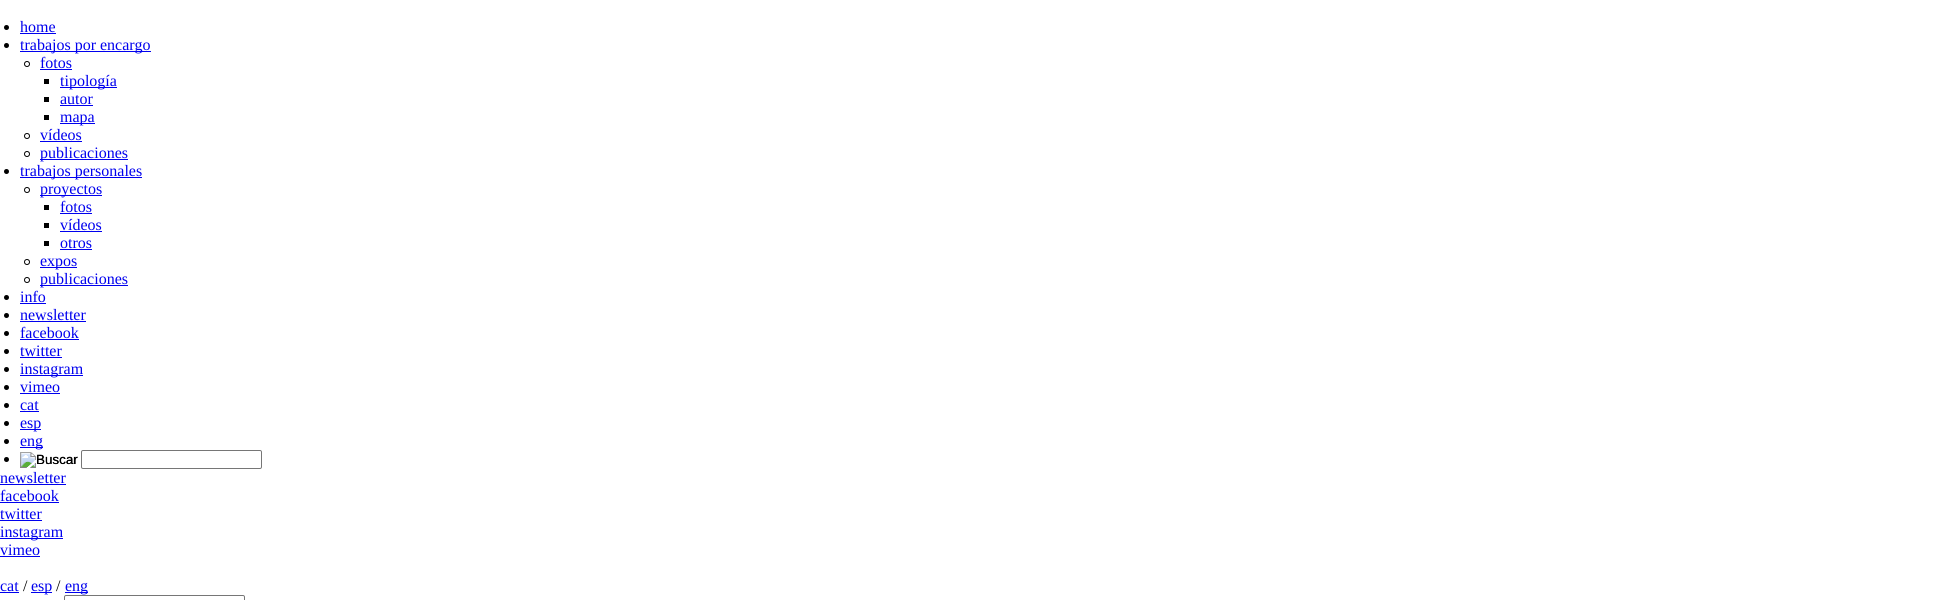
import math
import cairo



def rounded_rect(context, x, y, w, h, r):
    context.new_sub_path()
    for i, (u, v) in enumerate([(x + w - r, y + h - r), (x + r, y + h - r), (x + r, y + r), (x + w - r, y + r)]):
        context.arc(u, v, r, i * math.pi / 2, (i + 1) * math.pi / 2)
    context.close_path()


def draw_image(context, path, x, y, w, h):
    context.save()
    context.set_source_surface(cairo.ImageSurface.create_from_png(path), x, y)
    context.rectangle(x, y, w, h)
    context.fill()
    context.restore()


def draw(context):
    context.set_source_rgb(1, 1, 1)
    context.paint()
    context.set_source_rgb(0, 0, 0)
    context.arc(6.5, 27.5, 2.5, 0, 2 * math.pi)
    context.fill()
    context.set_source_rgb(0, 0, 238 / 255)
    context.rectangle(20, 33, 36, 1)
    context.fill()
    context.set_source_rgb(0, 0, 0)
    context.arc(6.5, 45.5, 2.5, 0, 2 * math.pi)
    context.fill()
    context.set_source_rgb(0, 0, 238 / 255)
    context.rectangle(20, 51, 131, 1)
    context.fill()
    context.arc(27, 64, 2.5, 0, 2 * math.pi)
    context.set_source_rgb(0, 0, 0)
    context.set_line_width(1)
    context.stroke()
    context.set_source_rgb(0, 0, 238 / 255)
    context.rectangle(40, 69, 32, 1)
    context.fill()
    context.set_source_rgb(0, 0, 0)
    context.rectangle(44, 79, 5, 5)
    context.fill()
    context.set_source_rgb(0, 0, 238 / 255)
    context.rectangle(60, 87, 57, 1)
    context.fill()
    context.set_source_rgb(0, 0, 0)
    context.rectangle(44, 97, 5, 5)
    context.fill()
    context.set_source_rgb(0, 0, 238 / 255)
    context.rectangle(60, 105, 33, 1)
    context.fill()
    context.set_source_rgb(0, 0, 0)
    context.rectangle(44, 115, 5, 5)
    context.fill()
    context.set_source_rgb(0, 0, 238 / 255)
    context.rectangle(60, 123, 35, 1)
    context.fill()
    context.arc(27, 136, 2.5, 0, 2 * math.pi)
    context.set_source_rgb(0, 0, 0)
    context.stroke()
    context.set_source_rgb(0, 0, 238 / 255)
    context.rectangle(40, 141, 42, 1)
    context.fill()
    context.arc(27, 154, 2.5, 0, 2 * math.pi)
    context.set_source_rgb(0, 0, 0)
    context.stroke()
    context.set_source_rgb(0, 0, 238 / 255)
    context.rectangle(40, 159, 88, 1)
    context.fill()
    context.set_source_rgb(0, 0, 0)
    context.arc(6.5, 171.5, 2.5, 0, 2 * math.pi)
    context.fill()
    context.set_source_rgb(0, 0, 238 / 255)
    context.rectangle(20, 177, 122, 1)
    context.fill()
    context.arc(27, 190, 2.5, 0, 2 * math.pi)
    context.set_source_rgb(0, 0, 0)
    context.stroke()
    context.set_source_rgb(0, 0, 238 / 255)
    context.rectangle(40, 195, 62, 1)
    context.fill()
    context.set_source_rgb(0, 0, 0)
    context.rectangle(44, 205, 5, 5)
    context.fill()
    context.set_source_rgb(0, 0, 238 / 255)
    context.rectangle(60, 213, 32, 1)
    context.fill()
    context.set_source_rgb(0, 0, 0)
    context.rectangle(44, 223, 5, 5)
    context.fill()
    context.set_source_rgb(0, 0, 238 / 255)
    context.rectangle(60, 231, 42, 1)
    context.fill()
    context.set_source_rgb(0, 0, 0)
    context.rectangle(44, 241, 5, 5)
    context.fill()
    context.set_source_rgb(0, 0, 238 / 255)
    context.rectangle(60, 249, 32, 1)
    context.fill()
    context.arc(27, 262, 2.5, 0, 2 * math.pi)
    context.set_source_rgb(0, 0, 0)
    context.stroke()
    context.set_source_rgb(0, 0, 238 / 255)
    context.rectangle(40, 267, 37, 1)
    context.fill()
    context.arc(27, 280, 2.5, 0, 2 * math.pi)
    context.set_source_rgb(0, 0, 0)
    context.stroke()
    context.set_source_rgb(0, 0, 238 / 255)
    context.rectangle(40, 285, 88, 1)
    context.fill()
    context.set_source_rgb(0, 0, 0)
    context.arc(6.5, 297.5, 2.5, 0, 2 * math.pi)
    context.fill()
    context.set_source_rgb(0, 0, 238 / 255)
    context.rectangle(20, 303, 26, 1)
    context.fill()
    context.set_source_rgb(0, 0, 0)
    context.arc(6.5, 315.5, 2.5, 0, 2 * math.pi)
    context.fill()
    context.set_source_rgb(0, 0, 238 / 255)
    context.rectangle(20, 321, 66, 1)
    context.fill()
    context.set_source_rgb(0, 0, 0)
    context.arc(6.5, 333.5, 2.5, 0, 2 * math.pi)
    context.fill()
    context.set_source_rgb(0, 0, 238 / 255)
    context.rectangle(20, 339, 59, 1)
    context.fill()
    context.set_source_rgb(0, 0, 0)
    context.arc(6.5, 351.5, 2.5, 0, 2 * math.pi)
    context.fill()
    context.set_source_rgb(0, 0, 238 / 255)
    context.rectangle(20, 357, 42, 1)
    context.fill()
    context.set_source_rgb(0, 0, 0)
    context.arc(6.5, 369.5, 2.5, 0, 2 * math.pi)
    context.fill()
    context.set_source_rgb(0, 0, 238 / 255)
    context.rectangle(20, 375, 63, 1)
    context.fill()
    context.set_source_rgb(0, 0, 0)
    context.arc(6.5, 387.5, 2.5, 0, 2 * math.pi)
    context.fill()
    context.set_source_rgb(0, 0, 238 / 255)
    context.rectangle(20, 393, 40, 1)
    context.fill()
    context.set_source_rgb(0, 0, 0)
    context.arc(6.5, 405.5, 2.5, 0, 2 * math.pi)
    context.fill()
    context.set_source_rgb(0, 0, 238 / 255)
    context.rectangle(20, 411, 19, 1)
    context.fill()
    context.set_source_rgb(0, 0, 0)
    context.arc(6.5, 423.5, 2.5, 0, 2 * math.pi)
    context.fill()
    context.set_source_rgb(0, 0, 238 / 255)
    context.rectangle(20, 429, 21, 1)
    context.fill()
    context.set_source_rgb(0, 0, 0)
    context.arc(6.5, 441.5, 2.5, 0, 2 * math.pi)
    context.fill()
    context.set_source_rgb(0, 0, 238 / 255)
    context.rectangle(20, 447, 23, 1)
    context.fill()
    context.set_source_rgb(0, 0, 0)
    context.arc(6.5, 459.5, 2.5, 0, 2 * math.pi)
    context.fill()
    draw_image(context, "images/1.png", 20, 452, 57, 16)
    rounded_rect(context, 81.5, 450.5, 180, 18, 1.5)
    context.set_source_rgb(118 / 255, 118 / 255, 118 / 255)
    context.stroke()
    context.set_source_rgb(0, 0, 238 / 255)
    context.rectangle(0, 484, 66, 1)
    context.fill()
    context.rectangle(0, 502, 59, 1)
    context.fill()
    context.rectangle(0, 520, 42, 1)
    context.fill()
    context.rectangle(0, 538, 63, 1)
    context.fill()
    context.rectangle(0, 556, 40, 1)
    context.fill()
    context.rectangle(0, 592, 19, 1)
    context.fill()
    context.rectangle(31, 592, 21, 1)
    context.fill()
    context.rectangle(65, 592, 23, 1)
    context.fill()
    rounded_rect(context, 64.5, 595.5, 180, 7, 1.5)
    context.set_source_rgb(118 / 255, 118 / 255, 118 / 255)
    context.stroke()
    context.select_font_face("Liberation Serif")
    context.set_font_size(16)
    context.set_source_rgb(0, 0, 238 / 255)
    context.move_to(20, 32)
    context.show_text("home")
    context.move_to(20, 50)
    context.show_text("trabajos por encargo")
    context.move_to(40, 68)
    context.show_text("fotos")
    context.move_to(60, 86)
    context.show_text("tipología")
    context.move_to(60, 104)
    context.show_text("autor")
    context.move_to(60, 122)
    context.show_text("mapa")
    context.move_to(40, 140)
    context.show_text("vídeos")
    context.move_to(40, 158)
    context.show_text("publicaciones")
    context.move_to(20, 176)
    context.show_text("trabajos personales")
    context.move_to(40, 194)
    context.show_text("proyectos")
    context.move_to(60, 212)
    context.show_text("fotos")
    context.move_to(60, 230)
    context.show_text("vídeos")
    context.move_to(60, 248)
    context.show_text("otros")
    context.move_to(40, 266)
    context.show_text("expos")
    context.move_to(40, 284)
    context.show_text("publicaciones")
    context.move_to(20, 302)
    context.show_text("info")
    context.move_to(20, 320)
    context.show_text("newsletter")
    context.move_to(20, 338)
    context.show_text("facebook")
    context.move_to(20, 356)
    context.show_text("twitter")
    context.move_to(20, 374)
    context.show_text("instagram")
    context.move_to(20, 392)
    context.show_text("vimeo")
    context.move_to(20, 410)
    context.show_text("cat")
    context.move_to(20, 428)
    context.show_text("esp")
    context.move_to(20, 446)
    context.show_text("eng")
    context.select_font_face("Liberation Sans")
    context.set_font_size(13.5)
    context.set_source_rgb(0, 0, 0)
    context.move_to(36, 464)
    context.show_text("Buscar")
    context.select_font_face("Liberation Serif")
    context.set_font_size(16)
    context.set_source_rgb(0, 0, 238 / 255)
    context.move_to(0, 483)
    context.show_text("newsletter")
    context.move_to(0, 501)
    context.show_text("facebook")
    context.move_to(0, 519)
    context.show_text("twitter")
    context.move_to(0, 537)
    context.show_text("instagram")
    context.move_to(0, 555)
    context.show_text("vimeo")
    context.move_to(0, 591)
    context.show_text("cat")
    context.set_source_rgb(0, 0, 0)
    context.move_to(23, 591)
    context.show_text("/")
    context.set_source_rgb(0, 0, 238 / 255)
    context.move_to(31, 591)
    context.show_text("esp")
    context.set_source_rgb(0, 0, 0)
    context.move_to(56, 591)
    context.show_text("/")
    context.set_source_rgb(0, 0, 238 / 255)
    context.move_to(65, 591)
    context.show_text("eng")


surface = cairo.ImageSurface(cairo.Format.RGB24, 1950, 600)
context = cairo.Context(surface)
options = cairo.FontOptions()
options.set_hint_metrics(cairo.HintMetrics.OFF)
options.set_hint_style(cairo.HintStyle.NONE)
context.set_font_options(options)
context.set_miter_limit(4)
draw(context)
surface.write_to_png("out.png")
